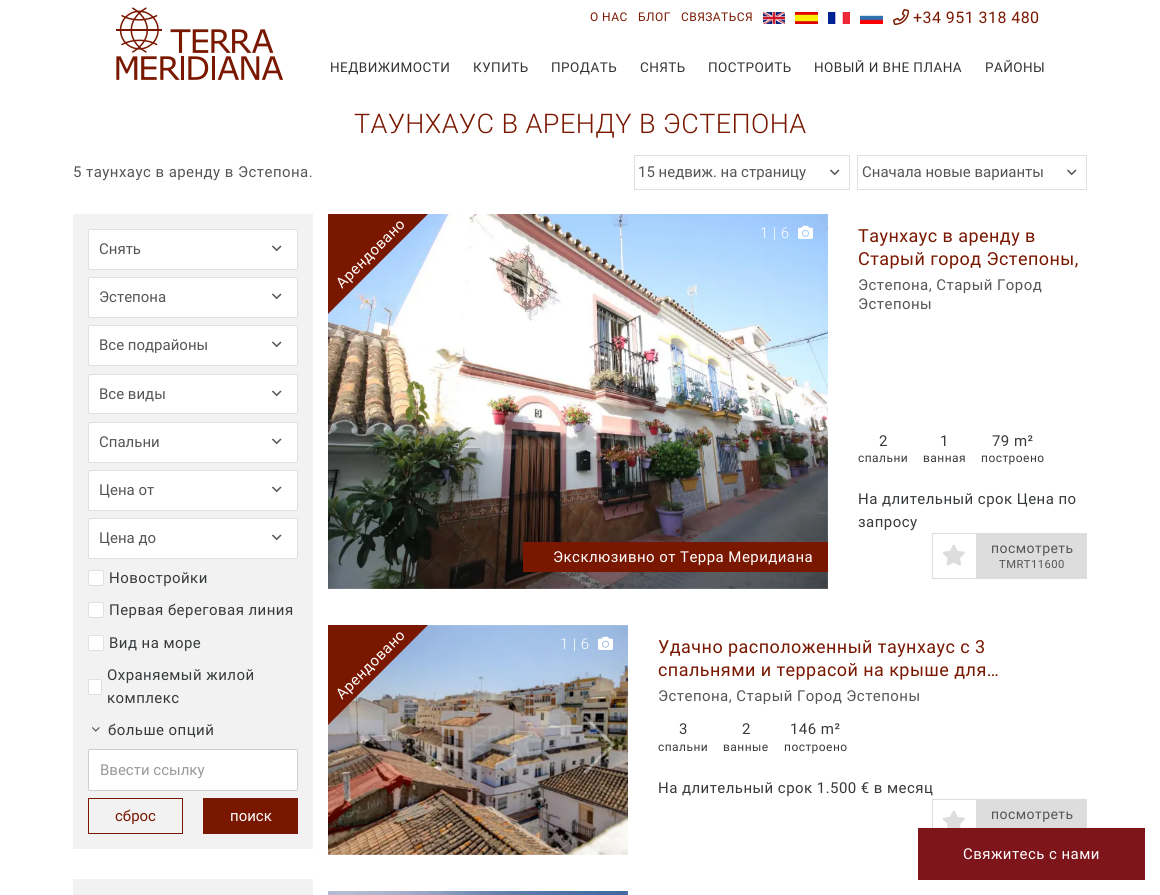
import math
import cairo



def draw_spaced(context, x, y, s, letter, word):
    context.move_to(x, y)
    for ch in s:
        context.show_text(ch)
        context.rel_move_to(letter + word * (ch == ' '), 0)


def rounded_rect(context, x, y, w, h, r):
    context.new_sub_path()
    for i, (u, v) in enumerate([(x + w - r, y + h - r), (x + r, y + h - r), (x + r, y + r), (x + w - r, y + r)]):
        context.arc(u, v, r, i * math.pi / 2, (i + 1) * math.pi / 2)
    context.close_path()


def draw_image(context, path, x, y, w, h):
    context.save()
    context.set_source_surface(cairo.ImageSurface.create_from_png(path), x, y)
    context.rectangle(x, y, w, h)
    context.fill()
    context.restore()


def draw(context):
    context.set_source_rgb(1, 1, 1)
    context.paint()
    draw_image(context, "images/1.png", 763, 12, 22, 12)
    draw_image(context, "images/2.png", 795, 12, 23, 12)
    draw_image(context, "images/3.png", 828, 12, 22, 12)
    draw_image(context, "images/4.png", 860, 15, 23, 9)
    draw_image(context, "images/5.png", 893, 9, 16, 16)
    draw_image(context, "images/6.png", 116, 7, 167, 73)
    context.rectangle(634.5, 155.5, 215, 34)
    context.set_source_rgb(224 / 255, 224 / 255, 224 / 255)
    context.set_line_width(1)
    context.stroke()
    draw_image(context, "images/7.png", 830, 169, 10, 7)
    context.rectangle(857.5, 155.5, 229, 34)
    context.stroke()
    draw_image(context, "images/7.png", 1067, 169, 10, 7)
    context.set_source_rgb(242 / 255, 242 / 255, 242 / 255)
    context.rectangle(73, 214, 240, 681)
    context.fill()
    context.set_source_rgb(1, 1, 1)
    rounded_rect(context, 88.5, 229.5, 209, 40, 1.5)
    context.fill_preserve()
    context.set_source_rgb(224 / 255, 224 / 255, 224 / 255)
    context.stroke()
    draw_image(context, "images/7.png", 272, 245, 10, 7)
    context.set_source_rgb(1, 1, 1)
    rounded_rect(context, 88.5, 277.5, 209, 40, 1.5)
    context.fill_preserve()
    context.set_source_rgb(224 / 255, 224 / 255, 224 / 255)
    context.stroke()
    draw_image(context, "images/7.png", 272, 293, 10, 7)
    context.set_source_rgb(1, 1, 1)
    rounded_rect(context, 88.5, 325.5, 209, 40, 1.5)
    context.fill_preserve()
    context.set_source_rgb(224 / 255, 224 / 255, 224 / 255)
    context.stroke()
    draw_image(context, "images/7.png", 272, 341, 10, 7)
    context.set_source_rgb(1, 1, 1)
    rounded_rect(context, 88.5, 374.5, 209, 39, 1.5)
    context.fill_preserve()
    context.set_source_rgb(224 / 255, 224 / 255, 224 / 255)
    context.stroke()
    draw_image(context, "images/7.png", 272, 390, 10, 7)
    context.set_source_rgb(1, 1, 1)
    rounded_rect(context, 88.5, 422.5, 209, 40, 1.5)
    context.fill_preserve()
    context.set_source_rgb(224 / 255, 224 / 255, 224 / 255)
    context.stroke()
    draw_image(context, "images/7.png", 272, 438, 10, 7)
    context.set_source_rgb(1, 1, 1)
    rounded_rect(context, 88.5, 470.5, 209, 40, 1.5)
    context.fill_preserve()
    context.set_source_rgb(224 / 255, 224 / 255, 224 / 255)
    context.stroke()
    draw_image(context, "images/7.png", 272, 486, 10, 7)
    context.set_source_rgb(1, 1, 1)
    rounded_rect(context, 88.5, 518.5, 209, 40, 1.5)
    context.fill_preserve()
    context.set_source_rgb(224 / 255, 224 / 255, 224 / 255)
    context.stroke()
    draw_image(context, "images/7.png", 272, 534, 10, 7)
    context.set_source_rgb(1, 1, 1)
    rounded_rect(context, 88.5, 570.5, 15, 15, 1.5)
    context.fill_preserve()
    context.set_source_rgb(224 / 255, 224 / 255, 224 / 255)
    context.stroke()
    context.set_source_rgb(1, 1, 1)
    rounded_rect(context, 88.5, 602.5, 15, 15, 1.5)
    context.fill_preserve()
    context.set_source_rgb(224 / 255, 224 / 255, 224 / 255)
    context.stroke()
    context.set_source_rgb(1, 1, 1)
    rounded_rect(context, 88.5, 635.5, 15, 15, 1.5)
    context.fill_preserve()
    context.set_source_rgb(224 / 255, 224 / 255, 224 / 255)
    context.stroke()
    context.set_source_rgb(1, 1, 1)
    rounded_rect(context, 88.5, 679.5, 13, 15, 1.5)
    context.fill_preserve()
    context.set_source_rgb(224 / 255, 224 / 255, 224 / 255)
    context.stroke()
    draw_image(context, "images/8.png", 92, 727, 8, 5)
    context.set_source_rgb(1, 1, 1)
    rounded_rect(context, 88.5, 749.5, 209, 41, 1.5)
    context.fill_preserve()
    context.set_source_rgb(206 / 255, 206 / 255, 206 / 255)
    context.stroke()
    context.rectangle(88.5, 798.5, 94, 35)
    context.set_source_rgb(121 / 255, 23 / 255, 0)
    context.stroke()
    context.rectangle(203, 798, 95, 36)
    context.fill()
    context.set_source_rgb(1, 1, 1)
    context.rectangle(73, 849, 240, 30)
    context.fill()
    draw_image(context, "images/9.png", 328, 214, 500, 375)
    context.set_source_rgb(121 / 255, 23 / 255, 0)
    context.new_path()
    context.move_to(328, 214)
    context.line_to(428, 214)
    context.line_to(328, 314)
    context.close_path()
    context.fill()
    draw_image(context, "images/10.png", 798, 225, 15, 14)
    draw_image(context, "images/11.png", 783, 376, 31, 59)
    context.set_source_rgb(122 / 255, 23 / 255, 0)
    context.rectangle(523, 542, 305, 30)
    context.fill()
    context.rectangle(932.5, 533.5, 44, 45)
    context.set_source_rgb(221 / 255, 221 / 255, 221 / 255)
    context.stroke()
    draw_image(context, "images/12.png", 943, 544, 22, 22)
    context.rectangle(977, 533, 110, 46)
    context.fill()
    draw_image(context, "images/13.png", 328, 625, 300, 230)
    context.set_source_rgb(121 / 255, 23 / 255, 0)
    context.new_path()
    context.move_to(328, 625)
    context.line_to(428, 625)
    context.line_to(328, 725)
    context.close_path()
    context.fill()
    draw_image(context, "images/14.png", 598, 636, 15, 14)
    draw_image(context, "images/15.png", 583, 715, 32, 59)
    context.rectangle(932.5, 799.5, 44, 45)
    context.set_source_rgb(221 / 255, 221 / 255, 221 / 255)
    context.stroke()
    draw_image(context, "images/16.png", 943, 810, 22, 18)
    context.rectangle(977, 799, 110, 29)
    context.fill()
    draw_image(context, "images/17.png", 328, 891, 300, 4)
    context.set_source_rgb(125 / 255, 21 / 255, 26 / 255)
    context.rectangle(918, 828, 227, 52)
    context.fill()
    context.select_font_face("Roboto")
    context.set_font_size(12)
    context.set_source_rgb(121 / 255, 23 / 255, 0)
    draw_spaced(context, 590, 21, "О НАС", 0.45, 0)
    draw_spaced(context, 638, 21, "БЛОГ", 0.45, 0)
    draw_spaced(context, 681, 21, "СВЯЗАТЬСЯ", 0.45, 0)
    context.set_font_size(16)
    draw_spaced(context, 913, 23, "+34 951 318 480", 0.45, 0)
    context.set_font_size(13.5)
    context.set_source_rgb(51 / 255, 51 / 255, 51 / 255)
    draw_spaced(context, 330, 72, "НЕДВИЖИМОСТИ", 0.45, 0)
    draw_spaced(context, 473, 72, "КУПИТЬ", 0.45, 0)
    draw_spaced(context, 551, 72, "ПРОДАТЬ", 0.45, 0)
    draw_spaced(context, 640, 72, "СНЯТЬ", 0.45, 0)
    draw_spaced(context, 708, 72, "ПОСТРОИТЬ", 0.45, 0)
    draw_spaced(context, 814, 72, "НОВЫЙ И ВНЕ ПЛАНА", 0.45, 0)
    draw_spaced(context, 985, 72, "РАЙОНЫ", 0.45, 0)
    context.select_font_face("Roboto Light")
    context.set_font_size(27)
    context.set_source_rgb(121 / 255, 23 / 255, 0)
    draw_spaced(context, 354, 133, "ТАУНХАУС В АРЕНДY В ЭСТЕПОНА", 0.45, 0)
    context.select_font_face("Roboto")
    context.set_font_size(15)
    context.set_source_rgb(85 / 255, 85 / 255, 85 / 255)
    draw_spaced(context, 73, 177, "5 таунхаус в арендy в Эстепона.", 0.45, 0)
    context.move_to(638, 177)
    context.show_text("15 недвиж. на страницу")
    context.move_to(862, 177)
    context.show_text("Сначала новые варианты")
    context.move_to(99, 254)
    context.show_text("Снять")
    context.move_to(99, 302)
    context.show_text("Эстепона")
    context.move_to(99, 350)
    context.show_text("Все подрайоны")
    context.move_to(99, 399)
    context.show_text("Все виды")
    context.move_to(99, 447)
    context.show_text("Спальни")
    context.move_to(99, 495)
    context.show_text("Цена от")
    context.move_to(99, 543)
    context.show_text("Цена до")
    context.set_source_rgb(55 / 255, 58 / 255, 60 / 255)
    draw_spaced(context, 109, 583, "Новостройки", 0.45, 0)
    draw_spaced(context, 109, 615, "Первая береговая линия", 0.45, 0)
    draw_spaced(context, 109, 648, "Вид на море", 0.45, 0)
    draw_spaced(context, 107, 680, "Охраняемый жилой", 0.45, 0)
    draw_spaced(context, 107, 703, "комплекс", 0.45, 0)
    draw_spaced(context, 108, 735, "больше опций", 0.45, 0)
    context.set_source_rgb(153 / 255, 153 / 255, 153 / 255)
    context.move_to(100, 775)
    context.show_text("Ввести ссылку")
    context.set_source_rgb(121 / 255, 23 / 255, 0)
    context.move_to(115, 821)
    context.show_text("сброс")
    context.set_source_rgb(1, 1, 1)
    context.move_to(230, 821)
    context.show_text("поиск")
    context.save()
    context.translate(342, 289)
    context.rotate(-45 * math.pi / 180)
    draw_spaced(context, 0, 0, "Арендовано", 0.45, 0)
    context.restore()
    context.select_font_face("Roboto Light")
    draw_spaced(context, 760, 238, "1 | 6", 0.45, 0)
    context.select_font_face("Roboto")
    draw_spaced(context, 553, 562, "Эксклюзивно от Терра Меридиана", 0.45, 0)
    context.set_font_size(18)
    context.set_source_rgb(121 / 255, 23 / 255, 0)
    draw_spaced(context, 858, 242, "Таунхаус в арендy в", 0.45, 0)
    draw_spaced(context, 858, 265, "Старый город Эстепоны,", 0.45, 0)
    context.set_font_size(15)
    context.set_source_rgb(85 / 255, 85 / 255, 85 / 255)
    draw_spaced(context, 858, 290, "Эстепона, Старый Город", 0.45, 0)
    draw_spaced(context, 858, 309, "Эстепоны", 0.45, 0)
    context.set_source_rgb(55 / 255, 58 / 255, 60 / 255)
    draw_spaced(context, 879, 446, "2", 0.45, 0)
    context.set_font_size(12)
    draw_spaced(context, 858, 462, "спальни", 0.45, 0)
    context.set_font_size(15)
    draw_spaced(context, 940, 446, "1", 0.45, 0)
    context.set_font_size(12)
    draw_spaced(context, 923, 462, "ванная", 0.45, 0)
    context.set_font_size(15)
    draw_spaced(context, 992, 446, "79 m²", 0.45, 0)
    context.set_font_size(12)
    draw_spaced(context, 981, 462, "построено", 0.45, 0)
    context.set_font_size(15)
    draw_spaced(context, 858, 504, "На длительный срок Цена по", 0.45, 0)
    draw_spaced(context, 858, 527, "запросу", 0.45, 0)
    context.set_font_size(14)
    context.set_source_rgb(85 / 255, 85 / 255, 85 / 255)
    draw_spaced(context, 991, 553, "посмотреть", 0.45, 0)
    context.set_font_size(11.25)
    draw_spaced(context, 999, 568, "TMRT11600", 0.45, 0)
    context.set_font_size(15)
    context.set_source_rgb(1, 1, 1)
    context.save()
    context.translate(342, 700)
    context.rotate(-45 * math.pi / 180)
    draw_spaced(context, 0, 0, "Арендовано", 0.45, 0)
    context.restore()
    context.select_font_face("Roboto Light")
    draw_spaced(context, 560, 649, "1 | 6", 0.45, 0)
    context.select_font_face("Roboto")
    context.set_font_size(18)
    context.set_source_rgb(121 / 255, 23 / 255, 0)
    draw_spaced(context, 658, 653, "Удачно расположенный таунхаус с 3", 0.45, 0)
    draw_spaced(context, 658, 676, "спальнями и террасой на крыше для…", 0.45, 0)
    context.set_font_size(15)
    context.set_source_rgb(85 / 255, 85 / 255, 85 / 255)
    draw_spaced(context, 658, 701, "Эстепона, Старый Город Эстепоны", 0.45, 0)
    context.set_source_rgb(55 / 255, 58 / 255, 60 / 255)
    draw_spaced(context, 679, 734, "3", 0.45, 0)
    context.set_font_size(12)
    draw_spaced(context, 658, 751, "спальни", 0.45, 0)
    context.set_font_size(15)
    draw_spaced(context, 742, 734, "2", 0.45, 0)
    context.set_font_size(12)
    draw_spaced(context, 723, 751, "ванные", 0.45, 0)
    context.set_font_size(15)
    draw_spaced(context, 790, 734, "146 m²", 0.45, 0)
    context.set_font_size(12)
    draw_spaced(context, 784, 751, "построено", 0.45, 0)
    context.set_font_size(15)
    draw_spaced(context, 658, 793, "На длительный срок 1.500 € в месяц", 0.45, 0)
    context.set_font_size(14)
    context.set_source_rgb(85 / 255, 85 / 255, 85 / 255)
    draw_spaced(context, 991, 819, "посмотреть", 0.45, 0)
    context.set_font_size(15)
    context.set_source_rgb(1, 1, 1)
    draw_spaced(context, 963, 859, "Свяжитесь с нами", 0.45, 0)


surface = cairo.ImageSurface(cairo.Format.RGB24, 1160, 895)
context = cairo.Context(surface)
options = cairo.FontOptions()
options.set_hint_metrics(cairo.HintMetrics.OFF)
options.set_hint_style(cairo.HintStyle.NONE)
context.set_font_options(options)
context.set_miter_limit(4)
draw(context)
surface.write_to_png("out.png")
